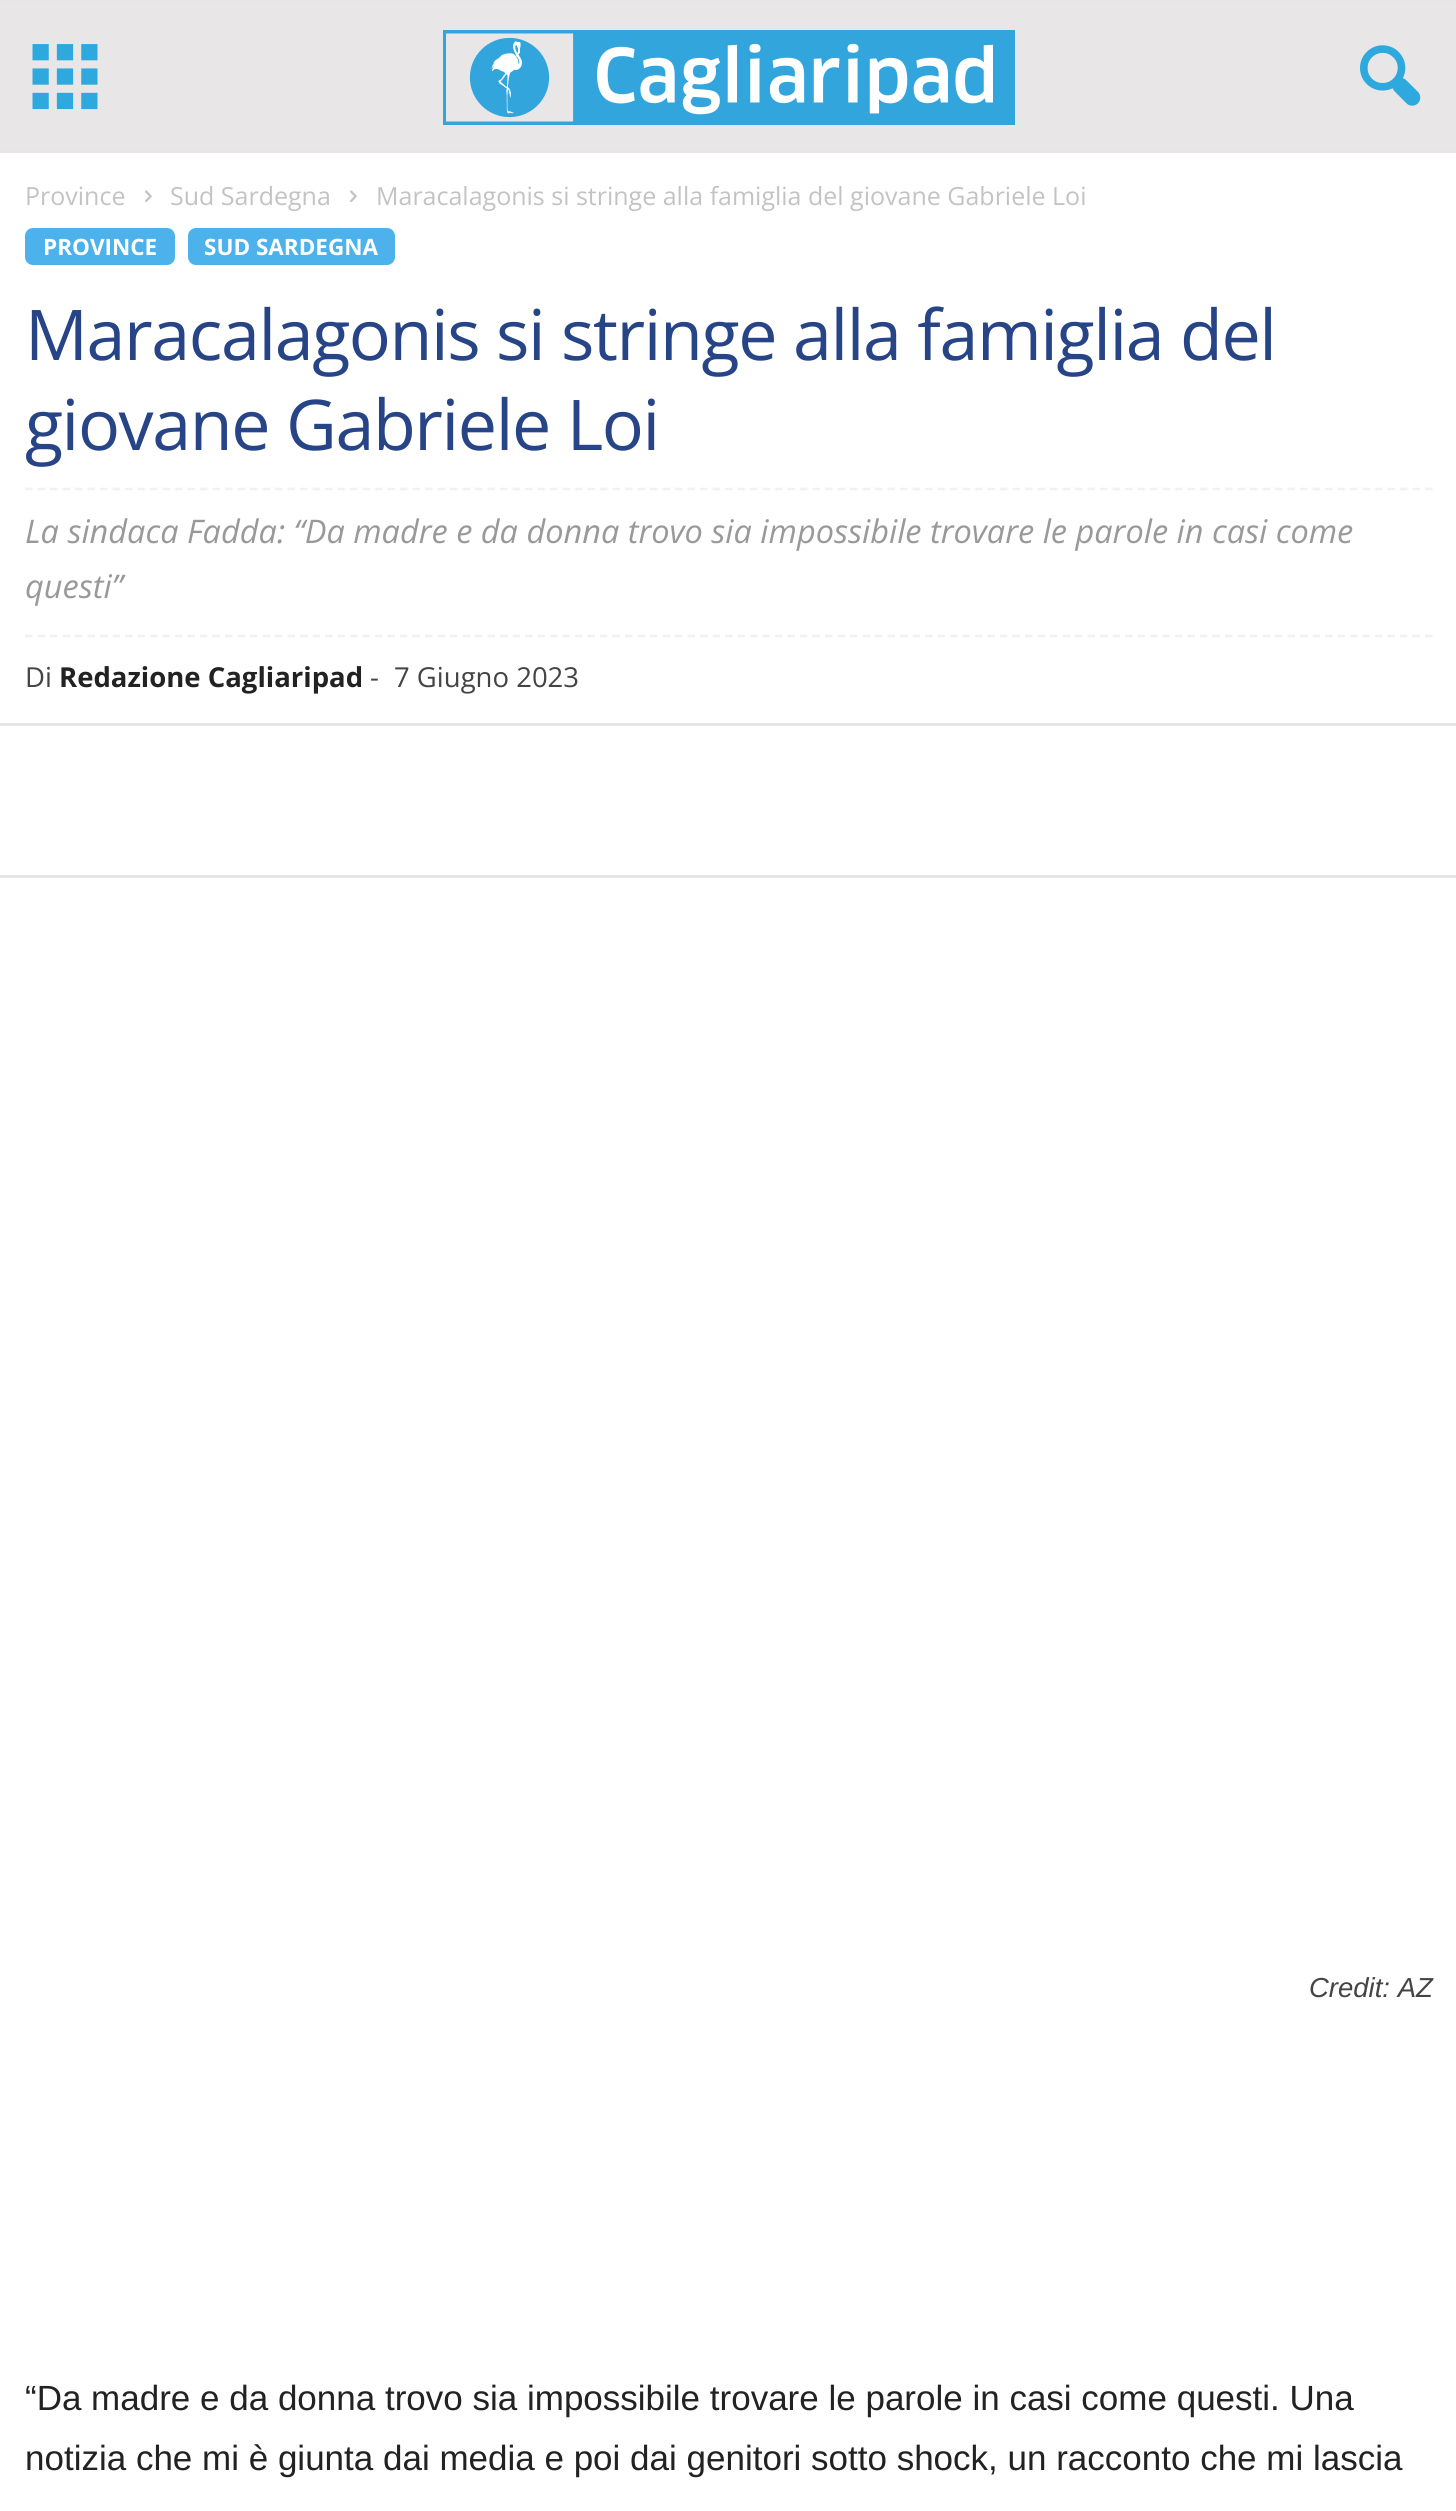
import math
import cairo



def draw_spaced(context, x, y, s, letter, word):
    context.move_to(x, y)
    for ch in s:
        context.show_text(ch)
        context.rel_move_to(letter + word * (ch == ' '), 0)


def rounded_rect(context, x, y, w, h, r):
    context.new_sub_path()
    for i, (u, v) in enumerate([(x + w - r, y + h - r), (x + r, y + h - r), (x + r, y + r), (x + w - r, y + r)]):
        context.arc(u, v, r, i * math.pi / 2, (i + 1) * math.pi / 2)
    context.close_path()


def draw_image(context, path, x, y, w, h):
    context.save()
    context.set_source_surface(cairo.ImageSurface.create_from_png(path), x, y)
    context.rectangle(x, y, w, h)
    context.fill()
    context.restore()


def draw(context):
    context.set_source_rgb(1, 1, 1)
    context.paint()
    context.set_source_rgb(232 / 255, 230 / 255, 231 / 255)
    context.rectangle(0, 3, 1456, 147)
    context.fill()
    context.set_source_rgb(230 / 255, 230 / 255, 230 / 255)
    context.rectangle(0, 0, 1456, 3)
    context.fill()
    context.rectangle(0, 150, 1456, 3)
    context.fill()
    draw_image(context, "images/1.png", 32, 44, 66, 66)
    draw_image(context, "images/2.png", 443, 30, 572, 95)
    draw_image(context, "images/3.png", 1360, 45, 61, 61)
    draw_image(context, "images/4.png", 145, 190, 7, 12)
    draw_image(context, "images/4.png", 350, 190, 7, 12)
    context.set_source_rgb(77 / 255, 178 / 255, 236 / 255)
    rounded_rect(context, 25, 228, 150, 37, 8)
    context.fill()
    rounded_rect(context, 188, 228, 207, 37, 8)
    context.fill()
    context.new_path()
    context.move_to(25, 489)
    context.line_to(1432.5, 489)
    context.set_source_rgb(241 / 255, 241 / 255, 241 / 255)
    context.set_line_width(2.5)
    context.set_dash([7.5, 5])
    context.stroke()
    context.new_path()
    context.move_to(25, 636)
    context.line_to(1432.5, 636)
    context.stroke()
    context.set_source_rgb(230 / 255, 230 / 255, 230 / 255)
    context.rectangle(0, 723, 1456, 3)
    context.fill()
    context.rectangle(0, 875, 1456, 3)
    context.fill()
    context.select_font_face("Open Sans")
    context.set_font_size(25)
    context.set_source_rgb(195 / 255, 195 / 255, 195 / 255)
    context.move_to(25, 205)
    context.show_text("Province")
    context.move_to(170, 205)
    context.show_text("Sud Sardegna")
    context.move_to(376, 205)
    context.show_text("Maracalagonis si stringe alla famiglia del giovane Gabriele Loi")
    context.select_font_face("Open Sans", cairo.FontSlant.NORMAL, cairo.FontWeight.BOLD)
    context.set_font_size(22.5)
    context.set_source_rgb(1, 1, 1)
    context.move_to(43, 255)
    context.show_text("PROVINCE")
    context.move_to(204, 255)
    context.show_text("SUD SARDEGNA")
    context.select_font_face("Open Sans")
    context.set_font_size(70)
    context.set_source_rgb(39 / 255, 68 / 255, 134 / 255)
    draw_spaced(context, 25, 360, "Maracalagonis si stringe alla famiglia del", -1.4, 0)
    draw_spaced(context, 25, 450, "giovane Gabriele Loi", -1.4, 0)
    context.select_font_face("Open Sans", cairo.FontSlant.ITALIC)
    context.set_font_size(32.5)
    context.set_source_rgb(153 / 255, 153 / 255, 153 / 255)
    context.move_to(25, 543)
    context.show_text("La sindaca Fadda: “Da madre e da donna trovo sia impossibile trovare le parole in casi come")
    context.move_to(25, 598)
    context.show_text("questi”")
    context.select_font_face("Open Sans")
    context.set_font_size(27.5)
    context.set_source_rgb(68 / 255, 68 / 255, 68 / 255)
    context.move_to(25, 687)
    context.show_text("Di")
    context.select_font_face("Open Sans", cairo.FontSlant.NORMAL, cairo.FontWeight.BOLD)
    context.set_source_rgb(34 / 255, 34 / 255, 34 / 255)
    context.move_to(59, 687)
    context.show_text("Redazione Cagliaripad")
    context.select_font_face("Open Sans")
    context.set_source_rgb(68 / 255, 68 / 255, 68 / 255)
    context.move_to(370, 687)
    context.show_text("-")
    context.move_to(394, 687)
    context.show_text("7 Giugno 2023")
    context.select_font_face("Liberation Sans", cairo.FontSlant.ITALIC)
    context.move_to(1309, 1997)
    context.show_text("Credit: AZ")
    context.select_font_face("Liberation Sans")
    context.set_font_size(35)
    context.set_source_rgb(34 / 255, 34 / 255, 34 / 255)
    context.move_to(25, 2410)
    context.show_text("“Da madre e da donna trovo sia impossibile trovare le parole in casi come questi. Una")
    context.move_to(25, 2470)
    context.show_text("notizia che mi è giunta dai media e poi dai genitori sotto shock, un racconto che mi lascia")


surface = cairo.ImageSurface(cairo.Format.RGB24, 1456, 2511)
context = cairo.Context(surface)
options = cairo.FontOptions()
options.set_hint_metrics(cairo.HintMetrics.OFF)
options.set_hint_style(cairo.HintStyle.NONE)
context.set_font_options(options)
context.set_miter_limit(4)
draw(context)
surface.write_to_png("out.png")
